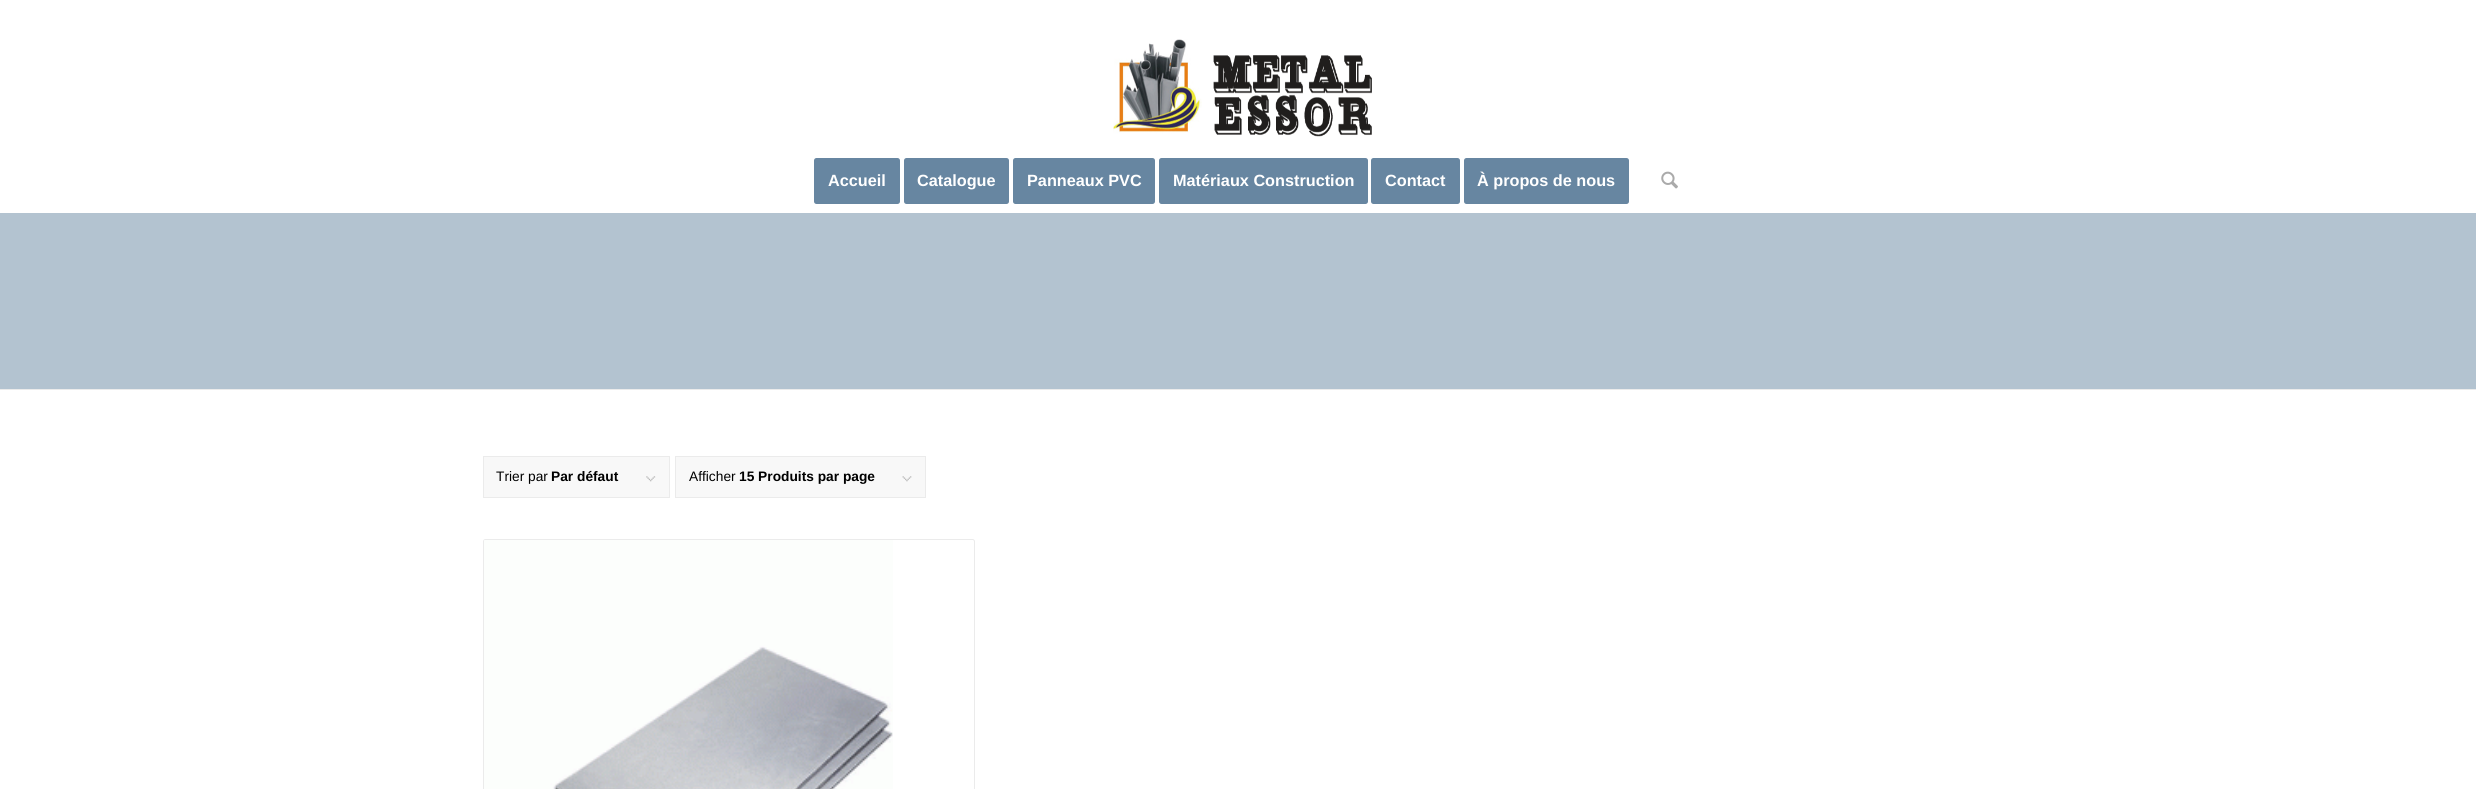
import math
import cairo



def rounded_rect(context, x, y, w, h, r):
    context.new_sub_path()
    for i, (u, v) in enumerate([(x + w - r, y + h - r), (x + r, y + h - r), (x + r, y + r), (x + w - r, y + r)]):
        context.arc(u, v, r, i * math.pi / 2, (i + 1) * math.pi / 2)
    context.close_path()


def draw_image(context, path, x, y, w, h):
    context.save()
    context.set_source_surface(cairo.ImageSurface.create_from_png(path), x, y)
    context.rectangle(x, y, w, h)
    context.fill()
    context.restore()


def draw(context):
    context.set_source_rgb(1, 1, 1)
    context.paint()
    draw_image(context, "images/1.png", 1113, 39, 259, 98)
    context.set_source_rgb(103 / 255, 134 / 255, 161 / 255)
    rounded_rect(context, 815.5, 159.5, 83, 43, 1)
    context.fill_preserve()
    context.set_line_width(3)
    context.stroke()
    rounded_rect(context, 905.5, 159.5, 102, 43, 1)
    context.fill_preserve()
    context.stroke()
    rounded_rect(context, 1014.5, 159.5, 139, 43, 1)
    context.fill_preserve()
    context.stroke()
    rounded_rect(context, 1160.5, 159.5, 206, 43, 1)
    context.fill_preserve()
    context.stroke()
    rounded_rect(context, 1372.5, 159.5, 86, 43, 1)
    context.fill_preserve()
    context.stroke()
    rounded_rect(context, 1465.5, 159.5, 162, 43, 1)
    context.fill_preserve()
    context.stroke()
    draw_image(context, "images/2.png", 1661, 171, 17, 18)
    context.set_source_rgb(179 / 255, 195 / 255, 208 / 255)
    context.rectangle(0, 213, 2476, 176)
    context.fill()
    context.set_source_rgb(235 / 255, 235 / 255, 235 / 255)
    context.rectangle(0, 389, 2476, 1)
    context.fill()
    context.set_source_rgb(248 / 255, 248 / 255, 248 / 255)
    context.rectangle(484, 457, 185, 40)
    context.fill()
    draw_image(context, "images/3.png", 646, 476, 10, 6)
    context.rectangle(483.5, 456.5, 186, 41)
    context.set_source_rgb(235 / 255, 235 / 255, 235 / 255)
    context.set_line_width(1)
    context.stroke()
    context.set_source_rgb(248 / 255, 248 / 255, 248 / 255)
    context.rectangle(676, 457, 249, 40)
    context.fill()
    draw_image(context, "images/4.png", 902, 476, 10, 6)
    context.rectangle(675.5, 456.5, 250, 41)
    context.set_source_rgb(235 / 255, 235 / 255, 235 / 255)
    context.stroke()
    rounded_rect(context, 483.5, 539.5, 491, 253, 2)
    context.stroke()
    draw_image(context, "images/5.png", 484, 540, 409, 249)
    context.select_font_face("Liberation Sans", cairo.FontSlant.NORMAL, cairo.FontWeight.BOLD)
    context.set_font_size(16.25)
    context.set_source_rgb(1, 1, 1)
    context.move_to(828, 186)
    context.show_text("Accueil")
    context.move_to(917, 186)
    context.show_text("Catalogue")
    context.move_to(1027, 186)
    context.show_text("Panneaux PVC")
    context.move_to(1173, 186)
    context.show_text("Matériaux Construction")
    context.move_to(1385, 186)
    context.show_text("Contact")
    context.move_to(1477, 186)
    context.show_text("À propos de nous")
    context.select_font_face("Liberation Sans")
    context.set_font_size(13.75)
    context.set_source_rgb(0, 0, 0)
    context.move_to(496, 481)
    context.show_text("Trier par")
    context.select_font_face("Liberation Sans", cairo.FontSlant.NORMAL, cairo.FontWeight.BOLD)
    context.move_to(551, 481)
    context.show_text("Par défaut")
    context.select_font_face("Liberation Sans")
    context.move_to(689, 481)
    context.show_text("Afficher")
    context.select_font_face("Liberation Sans", cairo.FontSlant.NORMAL, cairo.FontWeight.BOLD)
    context.move_to(739, 481)
    context.show_text("15 Produits par page")


surface = cairo.ImageSurface(cairo.Format.RGB24, 2476, 789)
context = cairo.Context(surface)
options = cairo.FontOptions()
options.set_hint_metrics(cairo.HintMetrics.OFF)
options.set_hint_style(cairo.HintStyle.NONE)
context.set_font_options(options)
context.set_miter_limit(4)
draw(context)
surface.write_to_png("out.png")
